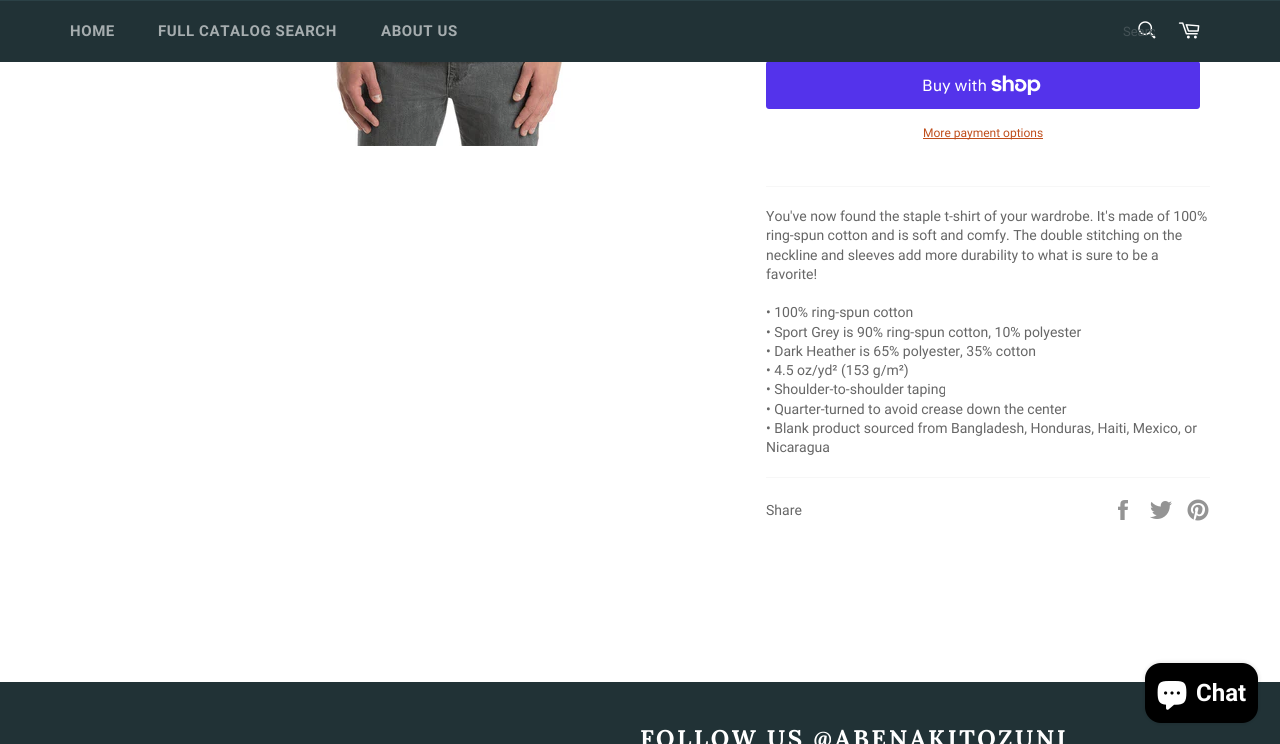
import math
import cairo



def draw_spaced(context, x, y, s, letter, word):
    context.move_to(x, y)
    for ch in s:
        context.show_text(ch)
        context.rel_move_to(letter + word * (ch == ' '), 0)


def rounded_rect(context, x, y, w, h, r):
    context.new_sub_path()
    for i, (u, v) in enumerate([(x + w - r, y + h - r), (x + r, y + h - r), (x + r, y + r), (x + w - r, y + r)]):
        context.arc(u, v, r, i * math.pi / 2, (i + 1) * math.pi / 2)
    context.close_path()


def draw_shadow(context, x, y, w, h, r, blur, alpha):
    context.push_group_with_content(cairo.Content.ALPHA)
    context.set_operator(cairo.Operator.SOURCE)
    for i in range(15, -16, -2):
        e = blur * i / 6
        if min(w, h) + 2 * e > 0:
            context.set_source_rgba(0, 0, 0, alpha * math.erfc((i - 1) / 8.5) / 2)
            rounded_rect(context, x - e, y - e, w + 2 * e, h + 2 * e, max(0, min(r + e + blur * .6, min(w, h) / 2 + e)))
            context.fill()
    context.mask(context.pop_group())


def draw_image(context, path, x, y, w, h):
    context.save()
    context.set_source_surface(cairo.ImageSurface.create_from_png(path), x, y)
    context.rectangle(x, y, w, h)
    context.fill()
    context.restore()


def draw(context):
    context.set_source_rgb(1, 1, 1)
    context.paint()
    context.set_source_rgb(84 / 255, 51 / 255, 235 / 255)
    rounded_rect(context, 766, 61, 434, 48, 3)
    context.fill()
    context.set_source_rgb(33 / 255, 50 / 255, 54 / 255)
    context.rectangle(0, 1, 1280, 61)
    context.fill()
    context.set_source_rgb(43 / 255, 65 / 255, 70 / 255)
    context.rectangle(0, 0, 1280, 1)
    context.fill()
    draw_image(context, "images/1.png", 1138, 21, 18, 18)
    draw_image(context, "images/2.png", 1178, 22, 22, 17)
    draw_image(context, "images/3.png", 330, 62, 245, 84)
    draw_image(context, "images/4.png", 991, 75, 50, 20)
    context.set_source_rgb(192 / 255, 79 / 255, 29 / 255)
    context.rectangle(923, 138, 120, 1)
    context.fill()
    context.set_source_rgb(247 / 255, 247 / 255, 247 / 255)
    context.rectangle(766, 186, 444, 1)
    context.fill()
    context.rectangle(766, 477, 444, 1)
    context.fill()
    draw_image(context, "images/5.png", 1118, 500, 10, 20)
    draw_image(context, "images/6.png", 1150, 501, 22, 18)
    draw_image(context, "images/7.png", 1187, 499, 22, 22)
    context.set_source_rgb(33 / 255, 50 / 255, 54 / 255)
    context.rectangle(0, 682, 1280, 62)
    context.fill()
    context.set_source_rgb(0, 0, 0)
    draw_shadow(context, 1145, 663, 113, 60, 16, 2.5, 0.15)
    context.set_source_rgb(0, 0, 0)
    rounded_rect(context, 1145, 663, 113, 60, 16)
    context.fill()
    draw_image(context, "images/8.png", 1157, 681, 30, 29)
    context.select_font_face("Roboto", cairo.FontSlant.NORMAL, cairo.FontWeight.BOLD)
    context.set_font_size(15)
    context.set_source_rgb(166 / 255, 173 / 255, 175 / 255)
    draw_spaced(context, 70, 36, "HOME", 0.6, 0)
    draw_spaced(context, 158, 36, "FULL CATALOG SEARCH", 0.6, 0)
    draw_spaced(context, 381, 36, "ABOUT US", 0.6, 0)
    context.save()
    context.rectangle(1123, 24, 32, 15)
    context.clip()
    context.select_font_face("Roboto")
    context.set_font_size(13)
    context.set_source_rgb(68 / 255, 82 / 255, 86 / 255)
    context.move_to(1123, 36)
    context.show_text("Searc")
    context.restore()
    context.select_font_face("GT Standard")
    context.set_font_size(16)
    context.set_source_rgb(1, 1, 1)
    context.move_to(922, 91)
    context.show_text("Buy with")
    context.select_font_face("Roboto")
    context.set_font_size(12)
    context.set_source_rgb(192 / 255, 79 / 255, 29 / 255)
    context.move_to(923, 137)
    context.show_text("More payment options")
    context.set_font_size(14)
    context.set_source_rgb(102 / 255, 102 / 255, 102 / 255)
    context.move_to(766, 221)
    context.show_text("You've now found the staple t-shirt of your wardrobe. It's made of 100%")
    context.move_to(766, 240)
    context.show_text("ring-spun cotton and is soft and comfy. The double stitching on the")
    context.move_to(766, 260)
    context.show_text("neckline and sleeves add more durability to what is sure to be a")
    context.move_to(766, 279)
    context.show_text("favorite!")
    context.move_to(766, 317)
    context.show_text("• 100% ring-spun cotton")
    context.move_to(766, 337)
    context.show_text("• Sport Grey is 90% ring-spun cotton, 10% polyester")
    context.move_to(766, 356)
    context.show_text("• Dark Heather is 65% polyester, 35% cotton")
    context.move_to(766, 375)
    context.show_text("• 4.5 oz/yd² (153 g/m²)")
    context.move_to(766, 394)
    context.show_text("• Shoulder-to-shoulder taping")
    context.move_to(766, 414)
    context.show_text("• Quarter-turned to avoid crease down the center")
    context.move_to(766, 433)
    context.show_text("• Blank product sourced from Bangladesh, Honduras, Haiti, Mexico, or")
    context.move_to(766, 452)
    context.show_text("Nicaragua")
    context.move_to(766, 515)
    context.show_text("Share")
    context.select_font_face("Lora", cairo.FontSlant.NORMAL, cairo.FontWeight.BOLD)
    context.set_font_size(24)
    context.set_source_rgb(1, 1, 1)
    draw_spaced(context, 640, 747, "FOLLOW US @ABENAKITOZUNI", 2.4, 0)
    context.select_font_face("Roboto", cairo.FontSlant.NORMAL, cairo.FontWeight.BOLD)
    context.move_to(1196, 701)
    context.show_text("Chat")


surface = cairo.ImageSurface(cairo.Format.RGB24, 1280, 744)
context = cairo.Context(surface)
options = cairo.FontOptions()
options.set_hint_metrics(cairo.HintMetrics.OFF)
options.set_hint_style(cairo.HintStyle.NONE)
context.set_font_options(options)
context.set_miter_limit(4)
draw(context)
surface.write_to_png("out.png")
